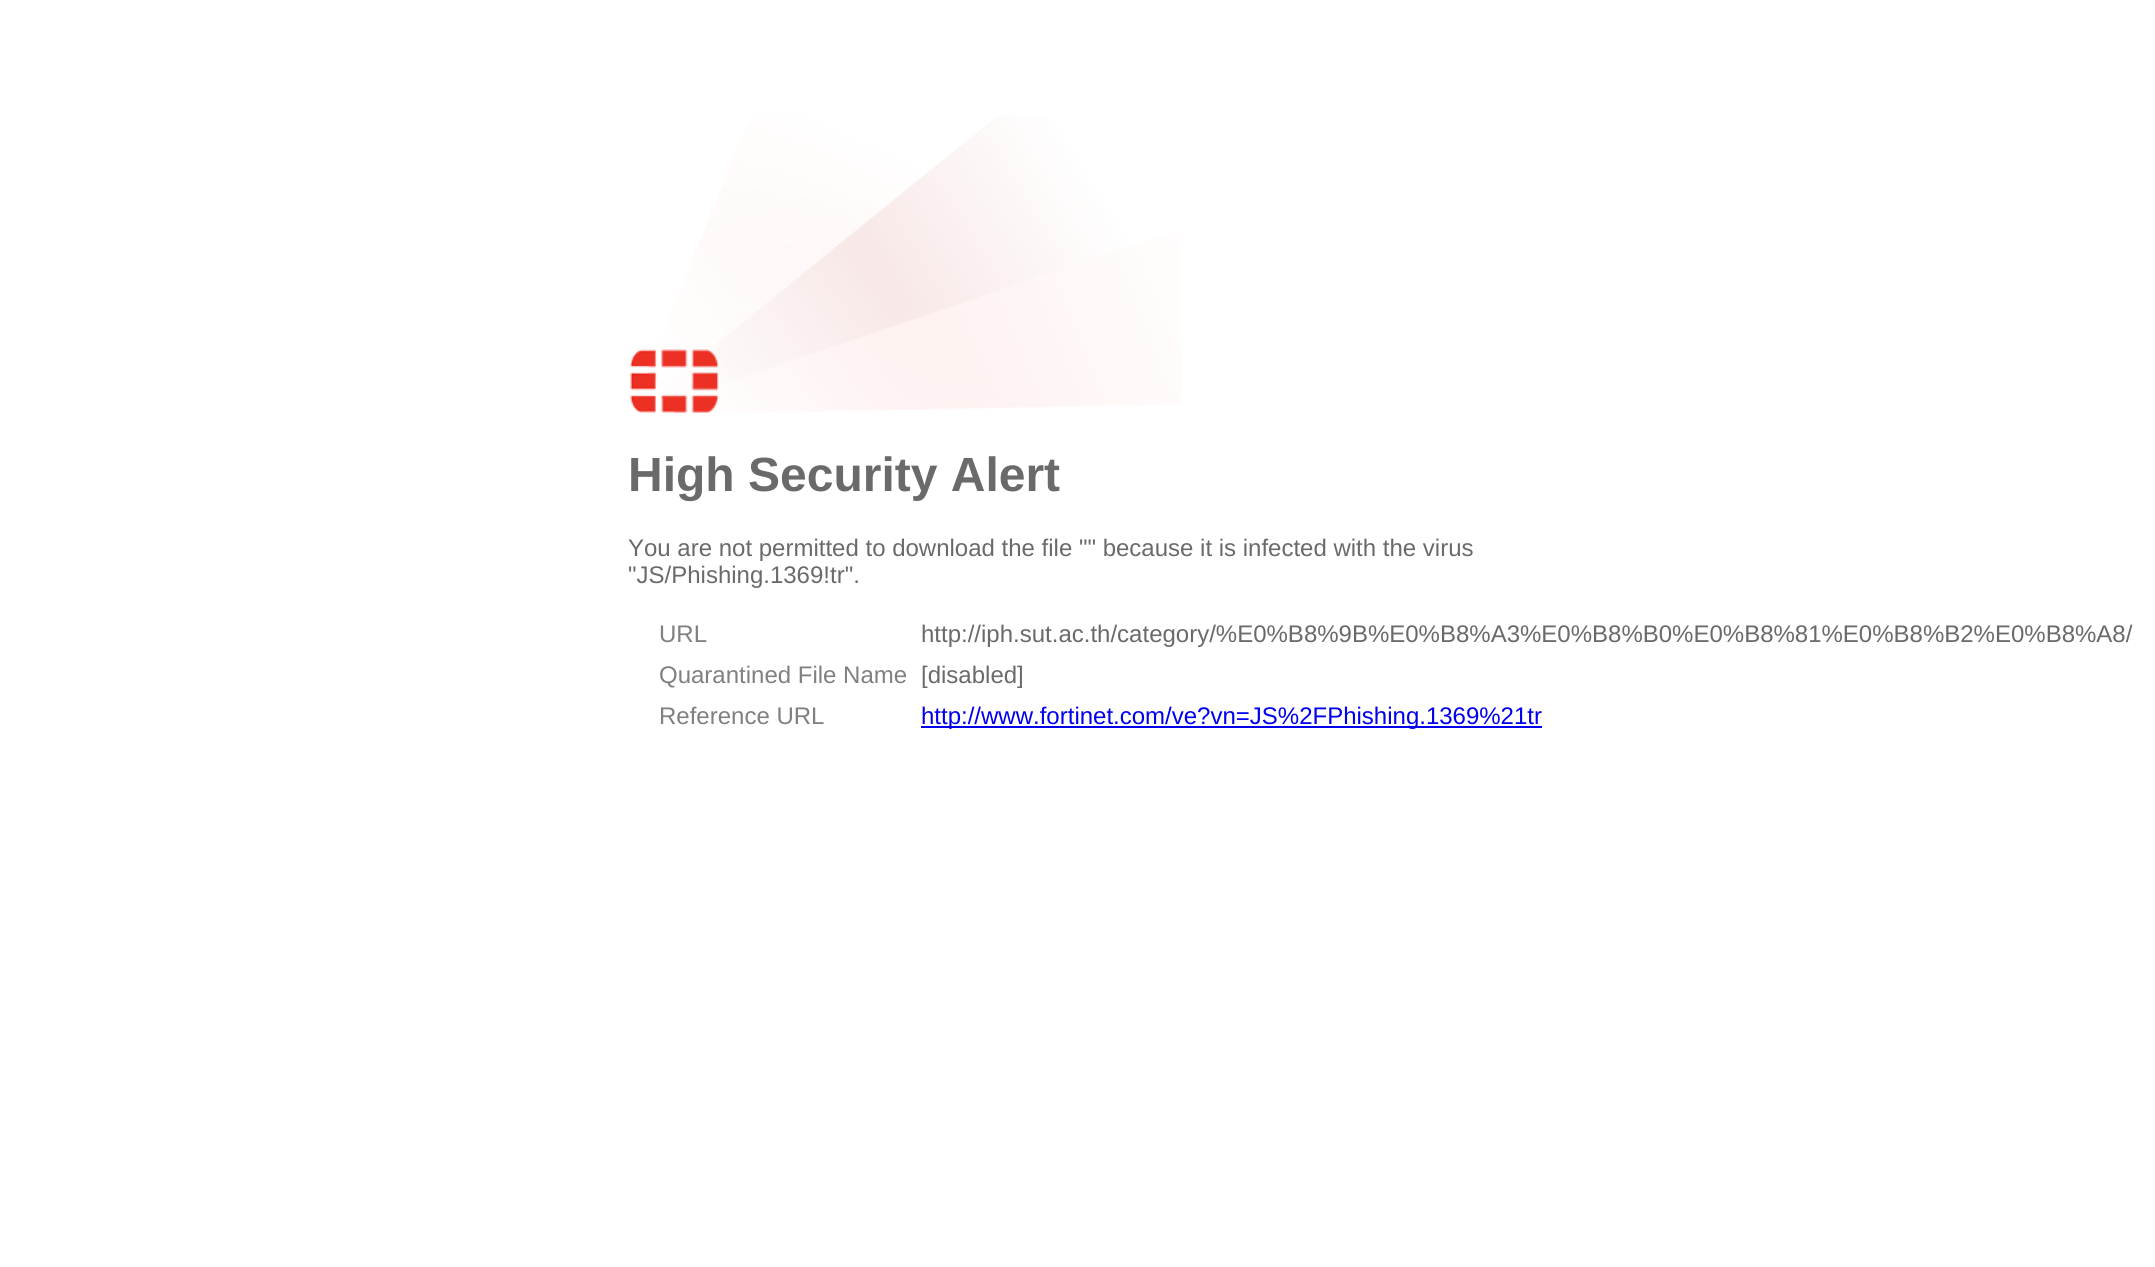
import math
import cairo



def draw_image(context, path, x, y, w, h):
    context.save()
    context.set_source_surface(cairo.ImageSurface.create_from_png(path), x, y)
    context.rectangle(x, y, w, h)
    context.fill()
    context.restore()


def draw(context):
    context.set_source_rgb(1, 1, 1)
    context.paint()
    draw_image(context, "images/1.png", 629, 115, 552, 298)
    context.set_source_rgb(0, 0, 238 / 255)
    context.rectangle(921, 726, 621, 2)
    context.fill()
    context.select_font_face("Liberation Sans", cairo.FontSlant.NORMAL, cairo.FontWeight.BOLD)
    context.set_font_size(48)
    context.set_source_rgb(106 / 255, 106 / 255, 106 / 255)
    context.move_to(628, 491)
    context.show_text("High Security Alert")
    context.select_font_face("Liberation Sans")
    context.set_font_size(24)
    context.move_to(628, 556)
    context.show_text("You are not permitted to download the file \"\" because it is infected with the virus")
    context.move_to(628, 583)
    context.show_text("\"JS/Phishing.1369!tr\".")
    context.set_source_rgb(128 / 255, 128 / 255, 128 / 255)
    context.move_to(659, 642)
    context.show_text("URL")
    context.set_source_rgb(106 / 255, 106 / 255, 106 / 255)
    context.move_to(921, 642)
    context.show_text("http://iph.sut.ac.th/category/%E0%B8%9B%E0%B8%A3%E0%B8%B0%E0%B8%81%E0%B8%B2%E0%B8%A8/")
    context.set_source_rgb(128 / 255, 128 / 255, 128 / 255)
    context.move_to(659, 683)
    context.show_text("Quarantined File Name")
    context.set_source_rgb(106 / 255, 106 / 255, 106 / 255)
    context.move_to(921, 683)
    context.show_text("[disabled]")
    context.set_source_rgb(128 / 255, 128 / 255, 128 / 255)
    context.move_to(659, 724)
    context.show_text("Reference URL")
    context.set_source_rgb(0, 0, 238 / 255)
    context.move_to(921, 724)
    context.show_text("http://www.fortinet.com/ve?vn=JS%2FPhishing.1369%21tr")


surface = cairo.ImageSurface(cairo.Format.RGB24, 2155, 1267)
context = cairo.Context(surface)
options = cairo.FontOptions()
options.set_hint_metrics(cairo.HintMetrics.OFF)
options.set_hint_style(cairo.HintStyle.NONE)
context.set_font_options(options)
context.set_miter_limit(4)
draw(context)
surface.write_to_png("out.png")
